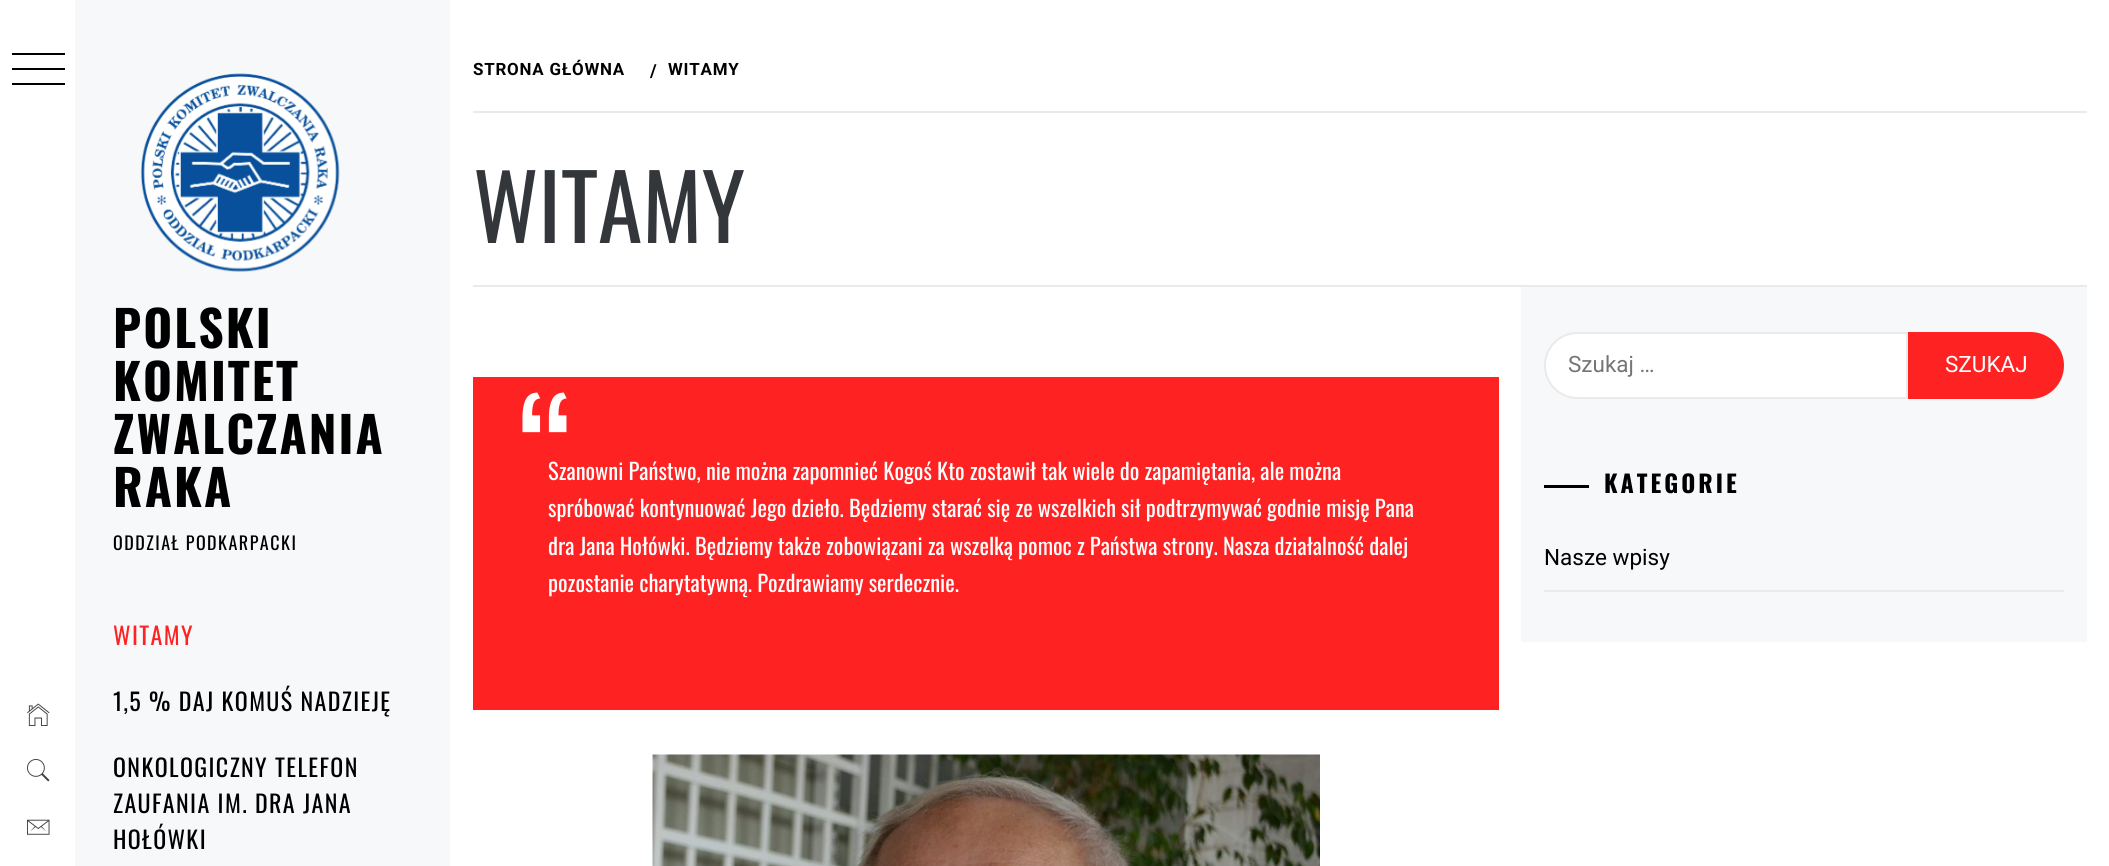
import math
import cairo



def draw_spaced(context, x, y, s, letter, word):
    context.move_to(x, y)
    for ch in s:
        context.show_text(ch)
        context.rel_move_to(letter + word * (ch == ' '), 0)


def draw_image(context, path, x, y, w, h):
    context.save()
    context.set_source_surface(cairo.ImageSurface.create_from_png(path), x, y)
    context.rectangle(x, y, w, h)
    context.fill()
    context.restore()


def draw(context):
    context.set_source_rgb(1, 1, 1)
    context.paint()
    context.set_source_rgb(0, 0, 0)
    context.rectangle(12, 53, 53, 2)
    context.fill()
    context.rectangle(12, 68, 53, 2)
    context.fill()
    context.rectangle(12, 83, 53, 2)
    context.fill()
    draw_image(context, "images/1.png", 27, 703, 23, 23)
    draw_image(context, "images/2.png", 27, 759, 23, 23)
    draw_image(context, "images/3.png", 27, 819, 23, 16)
    context.set_source_rgb(246 / 255, 248 / 255, 249 / 255)
    context.rectangle(75, 0, 375, 866)
    context.fill()
    draw_image(context, "images/4.png", 140, 73, 200, 199)
    context.set_source_rgb(234 / 255, 234 / 255, 234 / 255)
    context.rectangle(473, 285, 1614, 2)
    context.fill()
    context.rectangle(473, 111, 1614, 2)
    context.fill()
    context.set_source_rgb(1, 34 / 255, 34 / 255)
    context.rectangle(473, 377, 1026, 333)
    context.fill()
    draw_image(context, "images/5.png", 652, 754, 668, 112)
    context.set_source_rgb(246 / 255, 248 / 255, 249 / 255)
    context.rectangle(1521, 287, 566, 355)
    context.fill()
    context.set_source_rgb(1, 1, 1)
    context.new_path()
    context.move_to(1577.5, 333)
    context.line_to(1907, 333)
    context.line_to(1907, 398)
    context.line_to(1577.5, 398)
    context.curve_to(1559.5, 398, 1545, 383.5, 1545, 365.5)
    context.curve_to(1545, 347.5, 1559.5, 333, 1577.5, 333)
    context.close_path()
    context.fill_preserve()
    context.set_source_rgb(234 / 255, 234 / 255, 234 / 255)
    context.stroke()
    context.set_source_rgb(1, 34 / 255, 34 / 255)
    context.new_path()
    context.move_to(1908, 332)
    context.line_to(2030.5, 332)
    context.curve_to(2049, 332, 2064, 347, 2064, 365.5)
    context.curve_to(2064, 384, 2049, 399, 2030.5, 399)
    context.line_to(1908, 399)
    context.close_path()
    context.fill()
    context.set_source_rgb(0, 0, 0)
    context.rectangle(1544, 485, 45, 3)
    context.fill()
    context.set_source_rgb(234 / 255, 234 / 255, 234 / 255)
    context.rectangle(1544, 590, 520, 2)
    context.fill()
    context.select_font_face("Oswald", cairo.FontSlant.NORMAL, cairo.FontWeight.BOLD)
    context.set_font_size(49.5)
    context.set_source_rgb(0, 0, 0)
    draw_spaced(context, 113, 348, "POLSKI", 2, 0)
    draw_spaced(context, 113, 401, "KOMITET", 2, 0)
    draw_spaced(context, 113, 454, "ZWALCZANIA", 2, 0)
    draw_spaced(context, 113, 507, "RAKA", 2, 0)
    context.select_font_face("Oswald")
    context.set_font_size(18)
    draw_spaced(context, 113, 550, "ODDZIAŁ PODKARPACKI", 1.5, 0)
    context.set_font_size(24)
    context.set_source_rgb(1, 34 / 255, 34 / 255)
    draw_spaced(context, 113, 645, "WITAMY", 1.4, 0)
    context.set_source_rgb(0, 0, 0)
    draw_spaced(context, 113, 711, "1,5 % DAJ KOMUŚ NADZIEJĘ", 1.4, 0)
    draw_spaced(context, 113, 777, "ONKOLOGICZNY TELEFON", 1.4, 0)
    draw_spaced(context, 113, 813, "ZAUFANIA IM. DRA JANA", 1.4, 0)
    draw_spaced(context, 113, 849, "HOŁÓWKI", 1.4, 0)
    context.select_font_face("Roboto", cairo.FontSlant.NORMAL, cairo.FontWeight.BOLD)
    context.set_font_size(16.9)
    draw_spaced(context, 473, 75, "STRONA GŁÓWNA", 0.8, 0)
    context.set_font_size(18)
    draw_spaced(context, 650, 77, "/", 0.8, 0)
    context.set_font_size(16.9)
    draw_spaced(context, 668, 75, "WITAMY", 0.8, 0)
    context.select_font_face("Oswald")
    context.set_font_size(90)
    context.set_source_rgb(51 / 255, 54 / 255, 59 / 255)
    context.move_to(473, 243)
    context.show_text("WITAMY")
    context.set_font_size(150)
    context.set_source_rgb(1, 1, 1)
    context.move_to(518, 519)
    context.show_text("“")
    context.set_font_size(22.5)
    context.move_to(548, 480)
    context.show_text("Szanowni Państwo, nie można zapomnieć Kogoś Kto zostawił tak wiele do zapamiętania, ale można")
    context.move_to(548, 517)
    context.show_text("spróbować kontynuować Jego dzieło. Będziemy starać się ze wszelkich sił podtrzymywać godnie misję Pana")
    context.move_to(548, 555)
    context.show_text("dra Jana Hołówki. Będziemy także zobowiązani za wszelką pomoc z Państwa strony. Nasza działalność dalej")
    context.move_to(548, 592)
    context.show_text("pozostanie charytatywną. Pozdrawiamy serdecznie.")
    context.select_font_face("Roboto")
    context.set_source_rgb(117 / 255, 117 / 255, 117 / 255)
    context.move_to(1568, 372)
    context.show_text("Szukaj …")
    context.set_source_rgb(1, 1, 1)
    context.move_to(1945, 372)
    context.show_text("SZUKAJ")
    context.select_font_face("Oswald", cairo.FontSlant.NORMAL, cairo.FontWeight.BOLD)
    context.set_font_size(24)
    context.set_source_rgb(0, 0, 0)
    draw_spaced(context, 1604, 493, "KATEGORIE", 3, 0)
    context.select_font_face("Roboto")
    context.set_font_size(22.5)
    context.move_to(1544, 565)
    context.show_text("Nasze wpisy")


surface = cairo.ImageSurface(cairo.Format.RGB24, 2109, 866)
context = cairo.Context(surface)
options = cairo.FontOptions()
options.set_hint_metrics(cairo.HintMetrics.OFF)
options.set_hint_style(cairo.HintStyle.NONE)
context.set_font_options(options)
context.set_miter_limit(4)
draw(context)
surface.write_to_png("out.png")
